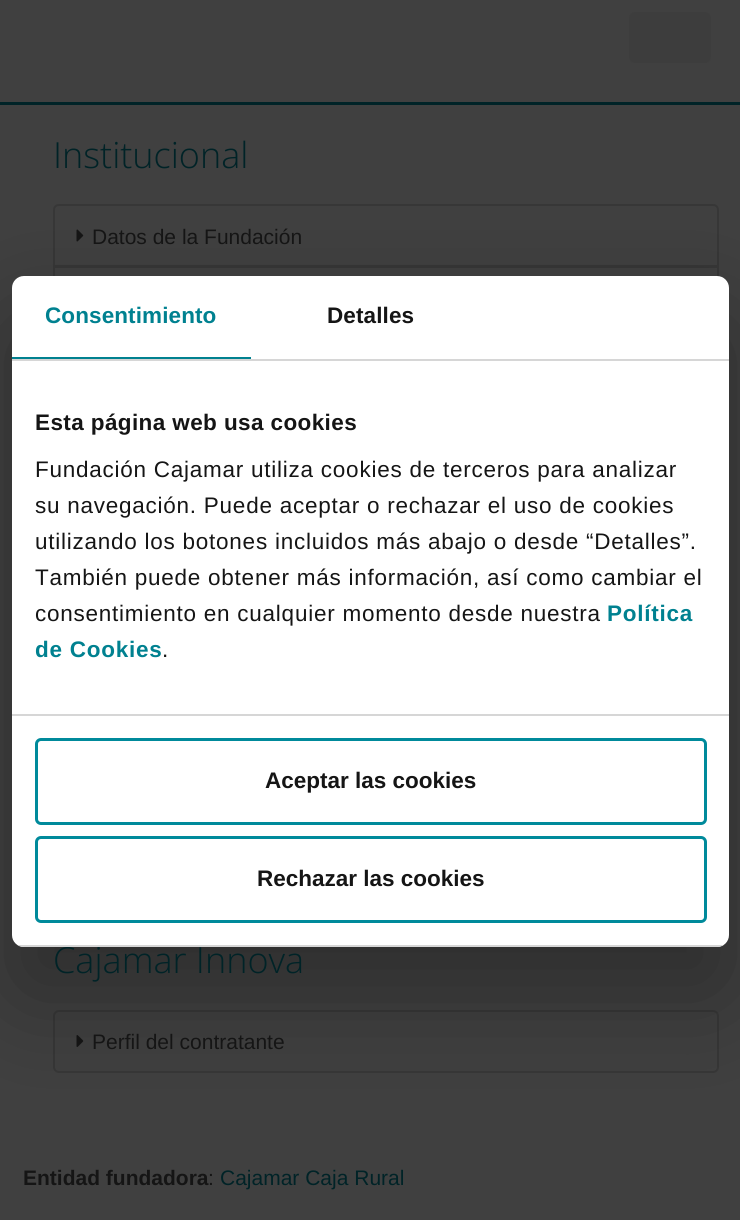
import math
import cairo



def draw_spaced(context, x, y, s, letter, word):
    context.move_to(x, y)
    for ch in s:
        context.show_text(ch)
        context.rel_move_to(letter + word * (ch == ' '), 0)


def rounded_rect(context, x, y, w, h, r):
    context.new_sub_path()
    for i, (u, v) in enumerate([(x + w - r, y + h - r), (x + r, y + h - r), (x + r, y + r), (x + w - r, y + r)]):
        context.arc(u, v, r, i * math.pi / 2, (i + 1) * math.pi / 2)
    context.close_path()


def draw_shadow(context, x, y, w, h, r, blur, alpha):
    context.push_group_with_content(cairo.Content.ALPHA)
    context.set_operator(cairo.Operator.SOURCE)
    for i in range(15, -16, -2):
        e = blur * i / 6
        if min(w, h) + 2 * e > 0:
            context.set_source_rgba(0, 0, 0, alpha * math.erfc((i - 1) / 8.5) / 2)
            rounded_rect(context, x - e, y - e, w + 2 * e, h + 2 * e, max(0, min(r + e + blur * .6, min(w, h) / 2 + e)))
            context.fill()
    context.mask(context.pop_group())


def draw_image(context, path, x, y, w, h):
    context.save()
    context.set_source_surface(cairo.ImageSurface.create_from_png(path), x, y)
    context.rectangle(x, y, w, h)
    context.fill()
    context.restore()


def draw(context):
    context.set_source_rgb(64 / 255, 64 / 255, 64 / 255)
    context.paint()
    context.set_source_rgb(61 / 255, 61 / 255, 61 / 255)
    rounded_rect(context, 629, 12, 82, 51, 6)
    context.fill()
    context.set_source_rgb(0, 35 / 255, 39 / 255)
    context.rectangle(0, 102, 740, 3)
    context.fill()
    context.new_path()
    context.move_to(59, 205)
    context.line_to(713, 205)
    context.curve_to(716, 205, 718, 207, 718, 210)
    context.line_to(718, 266)
    context.line_to(54, 266)
    context.line_to(54, 210)
    context.curve_to(54, 207, 56, 205, 59, 205)
    context.close_path()
    context.set_source_rgb(55 / 255, 55 / 255, 55 / 255)
    context.stroke()
    draw_image(context, "images/1.png", 76, 229, 8, 13)
    context.rectangle(54, 267, 664, 61)
    context.stroke()
    rounded_rect(context, 54, 1011, 664, 61, 5)
    context.stroke()
    draw_image(context, "images/2.png", 76, 1035, 8, 12)
    context.set_source_rgb(0, 0, 0)
    draw_shadow(context, 12, 324, 717, 671, 12, 51, 0.3)
    context.select_font_face("Open Sans Light")
    context.set_font_size(36)
    context.set_source_rgb(0, 35 / 255, 39 / 255)
    context.move_to(53, 168)
    context.show_text("Institucional")
    context.select_font_face("Liberation Sans")
    context.set_font_size(21)
    context.set_source_rgb(21 / 255, 21 / 255, 21 / 255)
    context.move_to(92, 244)
    context.show_text("Datos de la Fundación")
    context.select_font_face("Open Sans Light")
    context.set_font_size(36)
    context.set_source_rgb(0, 35 / 255, 39 / 255)
    context.move_to(53, 973)
    context.show_text("Cajamar Innova")
    context.select_font_face("Liberation Sans")
    context.set_font_size(21)
    context.set_source_rgb(21 / 255, 21 / 255, 21 / 255)
    context.move_to(92, 1049)
    context.show_text("Perfil del contratante")
    context.select_font_face("Liberation Sans", cairo.FontSlant.NORMAL, cairo.FontWeight.BOLD)
    context.move_to(23, 1185)
    context.show_text("Entidad fundadora")
    context.select_font_face("Liberation Sans")
    context.move_to(208, 1185)
    context.show_text(":")
    context.set_source_rgb(0, 35 / 255, 39 / 255)
    context.move_to(220, 1185)
    context.show_text("Cajamar Caja Rural")
    context.set_source_rgb(1, 1, 1)
    rounded_rect(context, 12, 276, 717, 671, 12)
    context.fill()
    context.set_source_rgb(214 / 255, 214 / 255, 214 / 255)
    context.rectangle(12, 359, 717, 2)
    context.fill()
    context.set_source_rgb(0, 129 / 255, 144 / 255)
    context.rectangle(12, 357, 239, 2)
    context.fill()
    context.select_font_face("Liberation Sans", cairo.FontSlant.NORMAL, cairo.FontWeight.BOLD)
    context.set_font_size(22.5)
    draw_spaced(context, 45, 323, "Consentimiento", 0.1, 0)
    context.set_source_rgb(21 / 255, 21 / 255, 21 / 255)
    draw_spaced(context, 327, 323, "Detalles", 0.1, 0)
    context.set_source_rgb(214 / 255, 214 / 255, 214 / 255)
    context.rectangle(12, 714, 717, 2)
    context.fill()
    context.set_source_rgb(21 / 255, 21 / 255, 21 / 255)
    draw_spaced(context, 35, 430, "Esta página web usa cookies", 0.4, 0)
    context.select_font_face("Liberation Sans")
    draw_spaced(context, 35, 477, "Fundación Cajamar utiliza cookies de terceros para analizar", 0.75, 0)
    draw_spaced(context, 35, 513, "su navegación. Puede aceptar o rechazar el uso de cookies", 0.75, 0)
    draw_spaced(context, 35, 549, "utilizando los botones incluidos más abajo o desde “Detalles”.", 0.75, 0)
    draw_spaced(context, 35, 585, "También puede obtener más información, así como cambiar el", 0.75, 0)
    draw_spaced(context, 35, 621, "consentimiento en cualquier momento desde nuestra", 0.75, 0)
    context.select_font_face("Liberation Sans", cairo.FontSlant.NORMAL, cairo.FontWeight.BOLD)
    context.set_source_rgb(0, 129 / 255, 144 / 255)
    draw_spaced(context, 607, 621, "Política", 0.75, 0)
    draw_spaced(context, 35, 657, "de Cookies", 0.75, 0)
    context.select_font_face("Liberation Sans")
    context.set_source_rgb(21 / 255, 21 / 255, 21 / 255)
    draw_spaced(context, 162, 657, ".", 0.75, 0)
    context.save()
    rounded_rect(context, 12, 276, 717, 671, 12)
    context.clip()
    context.set_source_rgb(214 / 255, 214 / 255, 214 / 255)
    context.rectangle(12, 945, 717, 2)
    context.fill()
    context.restore()
    rounded_rect(context, 36.5, 739.5, 669, 84, 4.5)
    context.set_source_rgb(0, 138 / 255, 155 / 255)
    context.set_line_width(3)
    context.stroke()
    context.select_font_face("Liberation Sans", cairo.FontSlant.NORMAL, cairo.FontWeight.BOLD)
    context.set_source_rgb(21 / 255, 21 / 255, 21 / 255)
    context.move_to(265, 788)
    context.show_text("Aceptar las cookies")
    rounded_rect(context, 36.5, 837.5, 669, 84, 4.5)
    context.set_source_rgb(0, 138 / 255, 155 / 255)
    context.stroke()
    context.set_source_rgb(21 / 255, 21 / 255, 21 / 255)
    context.move_to(257, 886)
    context.show_text("Rechazar las cookies")


surface = cairo.ImageSurface(cairo.Format.RGB24, 740, 1220)
context = cairo.Context(surface)
options = cairo.FontOptions()
options.set_hint_metrics(cairo.HintMetrics.OFF)
options.set_hint_style(cairo.HintStyle.NONE)
context.set_font_options(options)
context.set_miter_limit(4)
draw(context)
surface.write_to_png("out.png")
